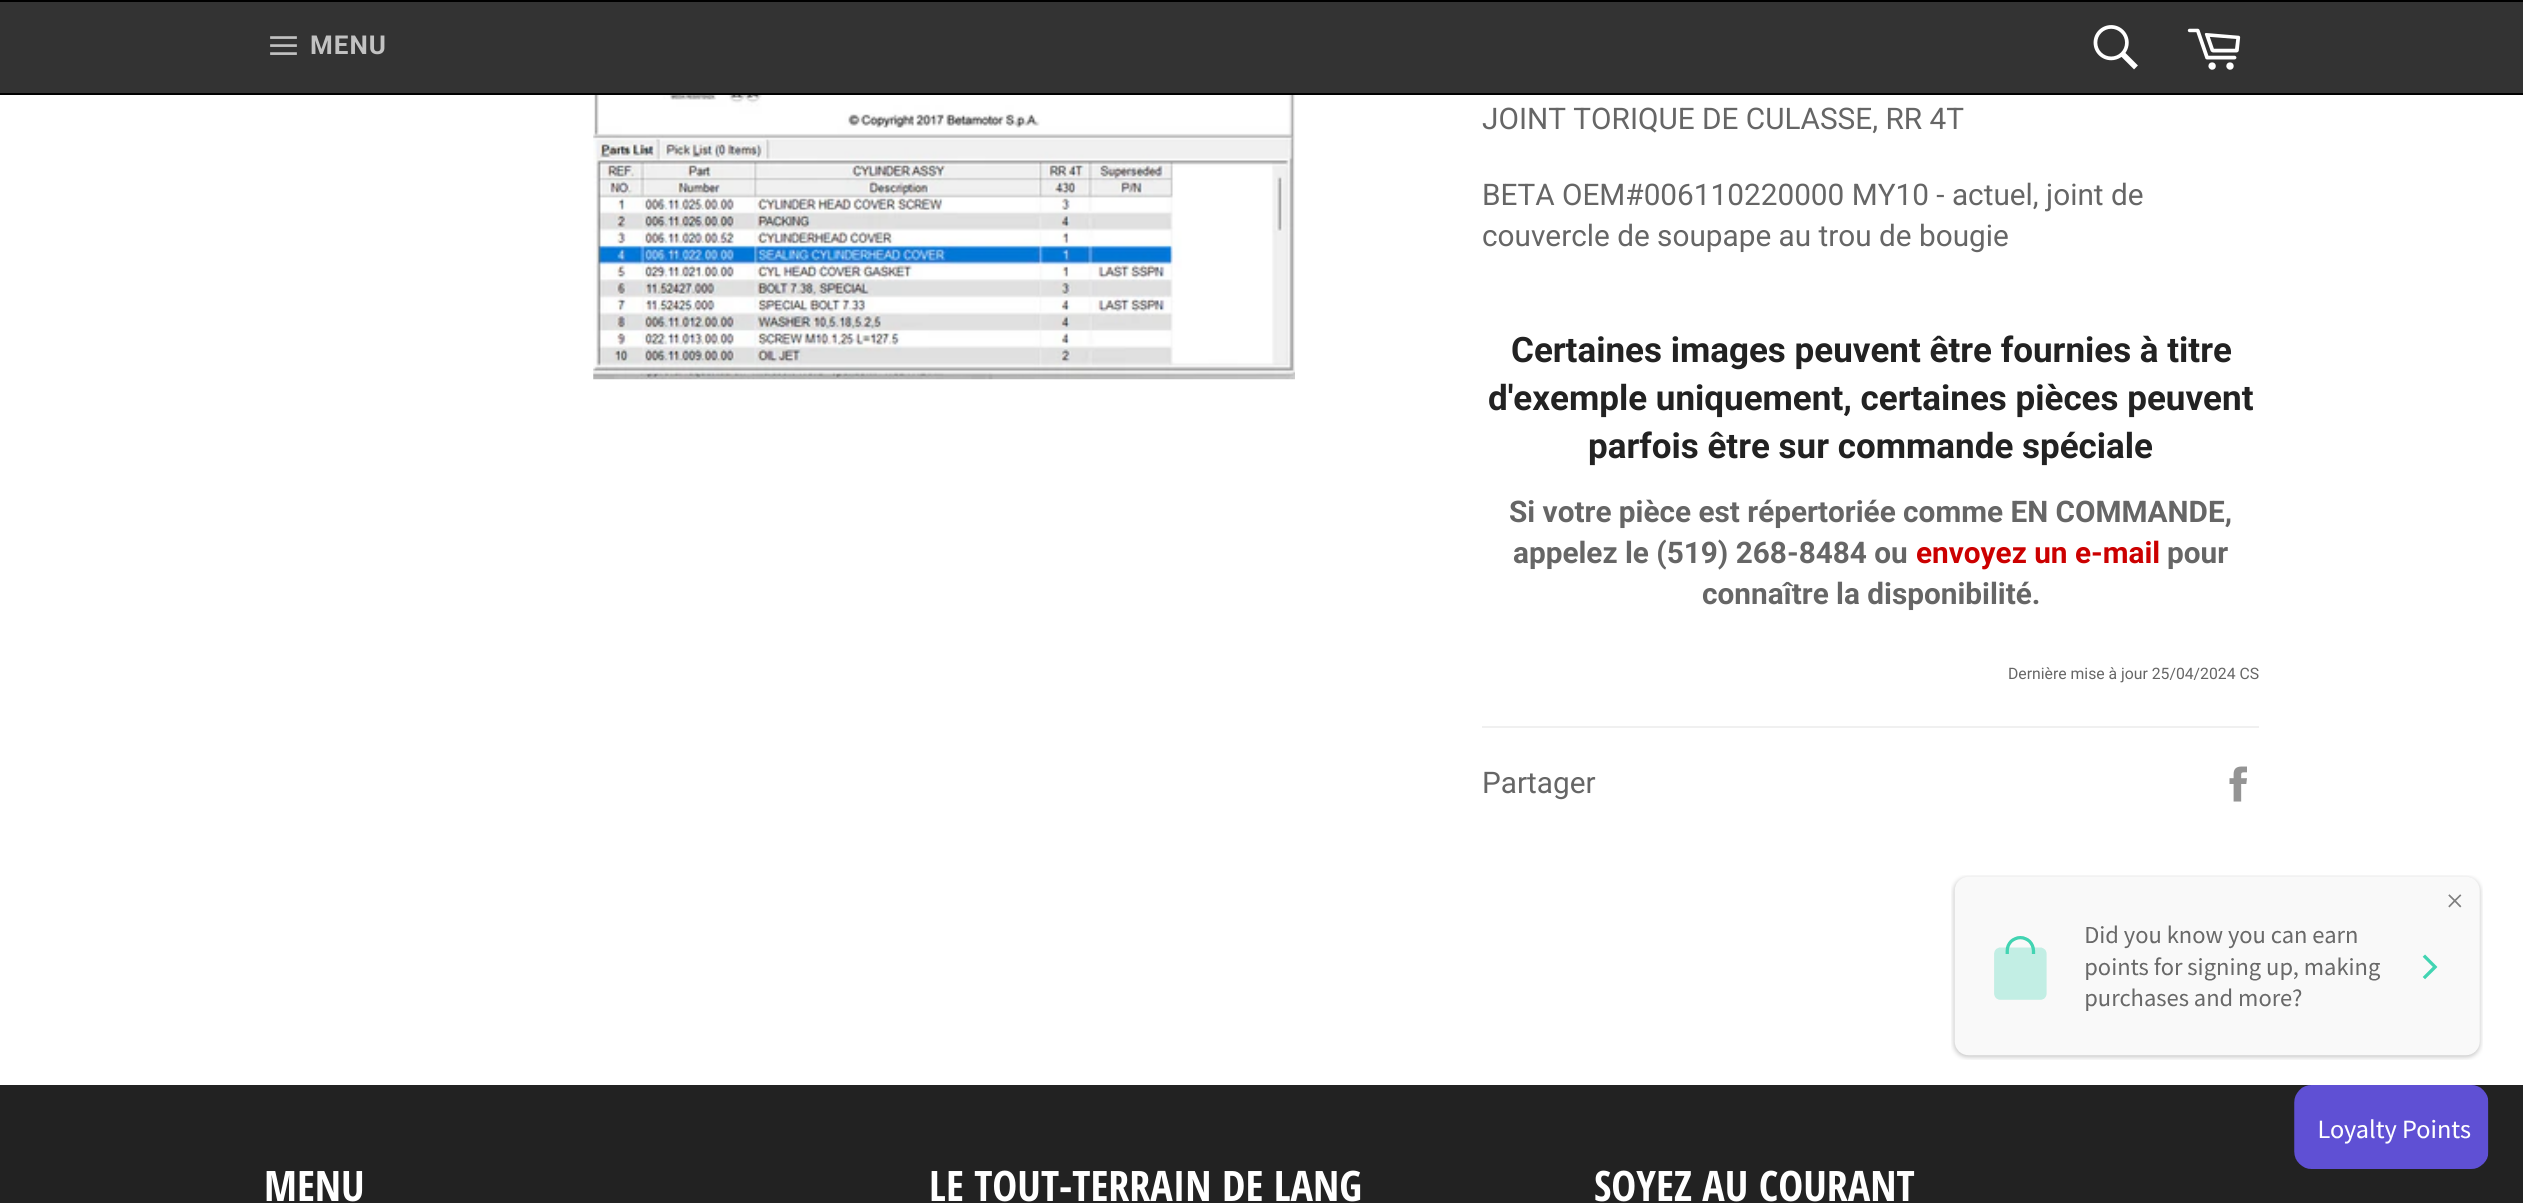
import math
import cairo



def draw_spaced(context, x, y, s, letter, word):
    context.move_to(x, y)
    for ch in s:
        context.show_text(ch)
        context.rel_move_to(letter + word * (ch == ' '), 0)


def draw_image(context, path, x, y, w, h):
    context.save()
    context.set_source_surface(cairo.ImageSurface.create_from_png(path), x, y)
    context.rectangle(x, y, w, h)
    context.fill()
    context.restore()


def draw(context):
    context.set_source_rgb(1, 1, 1)
    context.paint()
    context.set_source_rgb(0, 0, 0)
    context.rectangle(0, 0, 2523, 2)
    context.fill()
    context.rectangle(0, 93, 2523, 2)
    context.fill()
    context.set_source_rgb(51 / 255, 51 / 255, 51 / 255)
    context.rectangle(0, 2, 2523, 91)
    context.fill()
    draw_image(context, "images/1.png", 270, 36, 27, 19)
    draw_image(context, "images/2.png", 2093, 25, 45, 45)
    draw_image(context, "images/3.png", 2187, 28, 54, 42)
    draw_image(context, "images/4.png", 593, 95, 702, 285)
    context.set_source_rgb(240 / 255, 240 / 255, 240 / 255)
    context.rectangle(1482, 726, 777, 2)
    context.fill()
    draw_image(context, "images/5.png", 2229, 766, 18, 36)
    context.set_source_rgb(34 / 255, 34 / 255, 34 / 255)
    context.rectangle(0, 1085, 2523, 118)
    context.fill()
    draw_image(context, "images/6.png", 1951, 875, 532, 185)
    draw_image(context, "images/7.png", 2294, 1085, 195, 84)
    context.select_font_face("Roboto", cairo.FontSlant.NORMAL, cairo.FontWeight.BOLD)
    context.set_font_size(26)
    context.set_source_rgb(194 / 255, 194 / 255, 194 / 255)
    draw_spaced(context, 310, 54, "MENU", 1, 0)
    context.select_font_face("Roboto")
    context.set_font_size(29.75)
    context.set_source_rgb(102 / 255, 102 / 255, 102 / 255)
    context.move_to(1482, 129)
    context.show_text("JOINT TORIQUE DE CULASSE, RR 4T")
    context.move_to(1482, 205)
    context.show_text("BETA OEM#006110220000 MY10 - actuel, joint de")
    context.move_to(1482, 246)
    context.show_text("couvercle de soupape au trou de bougie")
    context.select_font_face("Roboto", cairo.FontSlant.NORMAL, cairo.FontWeight.BOLD)
    context.set_font_size(35)
    context.set_source_rgb(34 / 255, 34 / 255, 34 / 255)
    context.move_to(1511, 362)
    context.show_text("Certaines images peuvent être fournies à titre")
    context.move_to(1488, 410)
    context.show_text("d'exemple uniquement, certaines pièces peuvent")
    context.move_to(1588, 458)
    context.show_text("parfois être sur commande spéciale")
    context.set_font_size(29.75)
    context.set_source_rgb(102 / 255, 102 / 255, 102 / 255)
    context.move_to(1509, 522)
    context.show_text("Si votre pièce est répertoriée comme EN COMMANDE,")
    context.move_to(1513, 563)
    context.show_text("appelez le (519) 268-8484 ou")
    context.set_source_rgb(204 / 255, 0, 0)
    context.move_to(1916, 563)
    context.show_text("envoyez un e-mail")
    context.set_source_rgb(102 / 255, 102 / 255, 102 / 255)
    context.move_to(2167, 563)
    context.show_text("pour")
    context.move_to(1702, 604)
    context.show_text("connaître la disponibilité.")
    context.select_font_face("Roboto")
    context.set_font_size(15.75)
    context.move_to(2008, 679)
    context.show_text("Dernière mise à jour 25/04/2024 CS")
    context.set_font_size(29.75)
    context.move_to(1482, 793)
    context.show_text("Partager")
    context.select_font_face("Open Sans Condensed", cairo.FontSlant.NORMAL, cairo.FontWeight.BOLD)
    context.set_font_size(42)
    context.set_source_rgb(1, 1, 1)
    context.move_to(264, 1201)
    context.show_text("MENU")
    context.move_to(929, 1201)
    context.show_text("LE TOUT-TERRAIN DE LANG")
    context.move_to(1594, 1201)
    context.show_text("SOYEZ AU COURANT")


surface = cairo.ImageSurface(cairo.Format.RGB24, 2523, 1203)
context = cairo.Context(surface)
options = cairo.FontOptions()
options.set_hint_metrics(cairo.HintMetrics.OFF)
options.set_hint_style(cairo.HintStyle.NONE)
context.set_font_options(options)
context.set_miter_limit(4)
draw(context)
surface.write_to_png("out.png")
